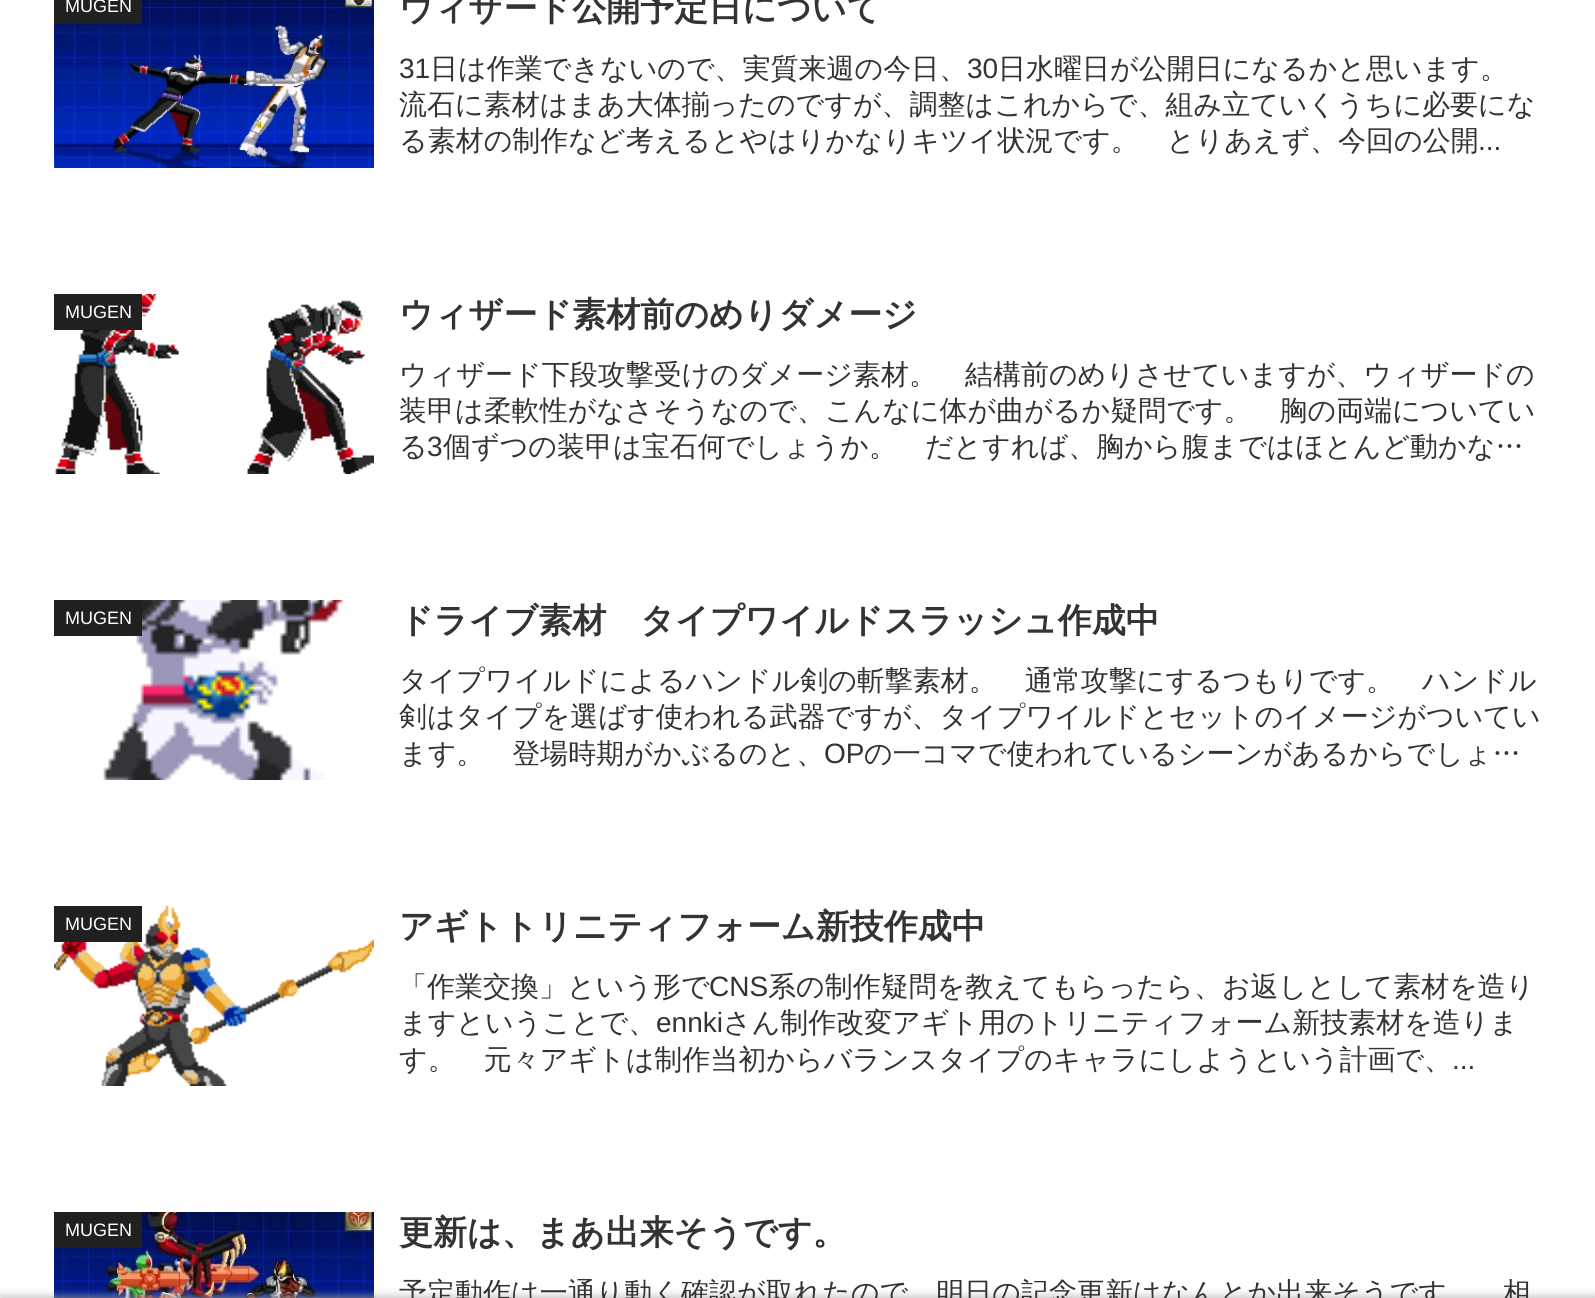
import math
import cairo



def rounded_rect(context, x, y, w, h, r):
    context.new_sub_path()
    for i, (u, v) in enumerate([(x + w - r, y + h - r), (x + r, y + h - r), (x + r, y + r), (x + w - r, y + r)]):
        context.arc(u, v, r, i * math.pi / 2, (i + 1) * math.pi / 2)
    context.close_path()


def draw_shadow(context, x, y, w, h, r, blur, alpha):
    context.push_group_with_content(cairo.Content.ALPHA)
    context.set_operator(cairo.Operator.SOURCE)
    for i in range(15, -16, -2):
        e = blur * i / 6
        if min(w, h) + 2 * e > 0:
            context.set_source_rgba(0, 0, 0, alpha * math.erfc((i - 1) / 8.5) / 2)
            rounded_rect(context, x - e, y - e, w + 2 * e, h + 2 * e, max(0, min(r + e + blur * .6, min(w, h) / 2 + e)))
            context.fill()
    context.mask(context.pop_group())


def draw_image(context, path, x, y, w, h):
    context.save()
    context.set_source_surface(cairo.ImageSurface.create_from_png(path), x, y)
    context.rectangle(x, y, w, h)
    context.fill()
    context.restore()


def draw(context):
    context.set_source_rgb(1, 1, 1)
    context.paint()
    draw_image(context, "images/1.png", 54, 0, 320, 168)
    context.set_source_rgb(32 / 255, 32 / 255, 32 / 255)
    context.rectangle(54, 0, 88, 24)
    context.fill()
    draw_image(context, "images/2.png", 55, 294, 319, 180)
    context.rectangle(54, 294, 88, 36)
    context.fill()
    draw_image(context, "images/3.png", 103, 600, 241, 180)
    context.rectangle(54, 600, 88, 36)
    context.fill()
    draw_image(context, "images/4.png", 54, 906, 320, 180)
    context.rectangle(54, 906, 88, 36)
    context.fill()
    draw_image(context, "images/5.png", 54, 1212, 320, 86)
    context.rectangle(54, 1212, 88, 36)
    context.fill()
    context.set_source_rgb(169 / 255, 169 / 255, 169 / 255)
    draw_shadow(context, 0, 1298, 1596, 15, 0, 5, 1)
    context.select_font_face("Liberation Sans")
    context.set_font_size(18)
    context.set_source_rgb(1, 1, 1)
    context.move_to(65, 12)
    context.show_text("MUGEN")
    context.select_font_face("WenQuanYi Zen Hei", cairo.FontSlant.NORMAL, cairo.FontWeight.BOLD)
    context.set_font_size(34)
    context.set_source_rgb(51 / 255, 51 / 255, 51 / 255)
    context.move_to(399, 20)
    context.show_text("ウィザード公開予定日について")
    context.select_font_face("Liberation Sans")
    context.set_font_size(28)
    context.move_to(399, 78)
    context.show_text("31")
    context.select_font_face("WenQuanYi Zen Hei Medium")
    context.move_to(430, 78)
    context.show_text("日は作業できないので、実質来週の今日、")
    context.select_font_face("Liberation Sans")
    context.move_to(967, 78)
    context.show_text("30")
    context.select_font_face("WenQuanYi Zen Hei Medium")
    context.move_to(998, 78)
    context.show_text("日水曜日が公開日になるかと思います。")
    context.move_to(399, 114)
    context.show_text("流石に素材はまあ大体揃ったのですが、調整はこれからで、組み立ていくうちに必要にな")
    context.move_to(399, 150)
    context.show_text("る素材の制作など考えるとやはりかなりキツイ状況です。　とりあえず、今回の公開")
    context.select_font_face("Liberation Sans")
    context.move_to(1478, 150)
    context.show_text("...")
    context.set_font_size(18)
    context.set_source_rgb(1, 1, 1)
    context.move_to(65, 318)
    context.show_text("MUGEN")
    context.select_font_face("WenQuanYi Zen Hei", cairo.FontSlant.NORMAL, cairo.FontWeight.BOLD)
    context.set_font_size(34)
    context.set_source_rgb(51 / 255, 51 / 255, 51 / 255)
    context.move_to(399, 326)
    context.show_text("ウィザード素材前のめりダメージ")
    context.select_font_face("WenQuanYi Zen Hei Medium")
    context.set_font_size(28)
    context.move_to(399, 384)
    context.show_text("ウィザード下段攻撃受けのダメージ素材。　結構前のめりさせていますが、ウィザードの")
    context.move_to(399, 420)
    context.show_text("装甲は柔軟性がなさそうなので、こんなに体が曲がるか疑問です。　胸の両端についてい")
    context.move_to(399, 456)
    context.show_text("る")
    context.select_font_face("Liberation Sans")
    context.move_to(427, 456)
    context.show_text("3")
    context.select_font_face("WenQuanYi Zen Hei Medium")
    context.move_to(443, 456)
    context.show_text("個ずつの装甲は宝石何でしょうか。　だとすれば、胸から腹まではほとんど動かな…")
    context.select_font_face("Liberation Sans")
    context.set_font_size(18)
    context.set_source_rgb(1, 1, 1)
    context.move_to(65, 624)
    context.show_text("MUGEN")
    context.select_font_face("WenQuanYi Zen Hei", cairo.FontSlant.NORMAL, cairo.FontWeight.BOLD)
    context.set_font_size(34)
    context.set_source_rgb(51 / 255, 51 / 255, 51 / 255)
    context.move_to(399, 632)
    context.show_text("ドライブ素材　タイプワイルドスラッシュ作成中")
    context.select_font_face("WenQuanYi Zen Hei Medium")
    context.set_font_size(28)
    context.move_to(399, 690)
    context.show_text("タイプワイルドによるハンドル剣の斬撃素材。　通常攻撃にするつもりです。　ハンドル")
    context.move_to(399, 726)
    context.show_text("剣はタイプを選ばす使われる武器ですが、タイプワイルドとセットのイメージがついてい")
    context.move_to(399, 763)
    context.show_text("ます。　登場時期がかぶるのと、")
    context.select_font_face("Liberation Sans")
    context.move_to(824, 763)
    context.show_text("OP")
    context.select_font_face("WenQuanYi Zen Hei Medium")
    context.move_to(864, 763)
    context.show_text("の一コマで使われているシーンがあるからでしょ…")
    context.select_font_face("Liberation Sans")
    context.set_font_size(18)
    context.set_source_rgb(1, 1, 1)
    context.move_to(65, 930)
    context.show_text("MUGEN")
    context.select_font_face("WenQuanYi Zen Hei", cairo.FontSlant.NORMAL, cairo.FontWeight.BOLD)
    context.set_font_size(34)
    context.set_source_rgb(51 / 255, 51 / 255, 51 / 255)
    context.move_to(399, 938)
    context.show_text("アギトトリニティフォーム新技作成中")
    context.select_font_face("WenQuanYi Zen Hei Medium")
    context.set_font_size(28)
    context.move_to(399, 996)
    context.show_text("「作業交換」という形で")
    context.select_font_face("Liberation Sans")
    context.move_to(709, 996)
    context.show_text("CNS")
    context.select_font_face("WenQuanYi Zen Hei Medium")
    context.move_to(768, 996)
    context.show_text("系の制作疑問を教えてもらったら、お返しとして素材を造り")
    context.move_to(399, 1032)
    context.show_text("ますということで、")
    context.select_font_face("Liberation Sans")
    context.move_to(656, 1032)
    context.show_text("ennki")
    context.select_font_face("WenQuanYi Zen Hei Medium")
    context.move_to(723, 1032)
    context.show_text("さん制作改変アギト用のトリニティフォーム新技素材を造りま")
    context.move_to(399, 1069)
    context.show_text("す。　元々アギトは制作当初からバランスタイプのキャラにしようという計画で、")
    context.select_font_face("Liberation Sans")
    context.move_to(1452, 1069)
    context.show_text("...")
    context.set_font_size(18)
    context.set_source_rgb(1, 1, 1)
    context.move_to(65, 1236)
    context.show_text("MUGEN")
    context.select_font_face("WenQuanYi Zen Hei", cairo.FontSlant.NORMAL, cairo.FontWeight.BOLD)
    context.set_font_size(34)
    context.set_source_rgb(51 / 255, 51 / 255, 51 / 255)
    context.move_to(399, 1244)
    context.show_text("更新は、まあ出来そうです。")
    context.select_font_face("WenQuanYi Zen Hei Medium")
    context.set_font_size(28)
    context.move_to(399, 1302)
    context.show_text("予定動作は一通り動く確認が取れたので、明日の記念更新はなんとか出来そうです。　相")


surface = cairo.ImageSurface(cairo.Format.RGB24, 1595, 1298)
context = cairo.Context(surface)
options = cairo.FontOptions()
options.set_hint_metrics(cairo.HintMetrics.OFF)
options.set_hint_style(cairo.HintStyle.NONE)
context.set_font_options(options)
context.set_miter_limit(4)
draw(context)
surface.write_to_png("out.png")
